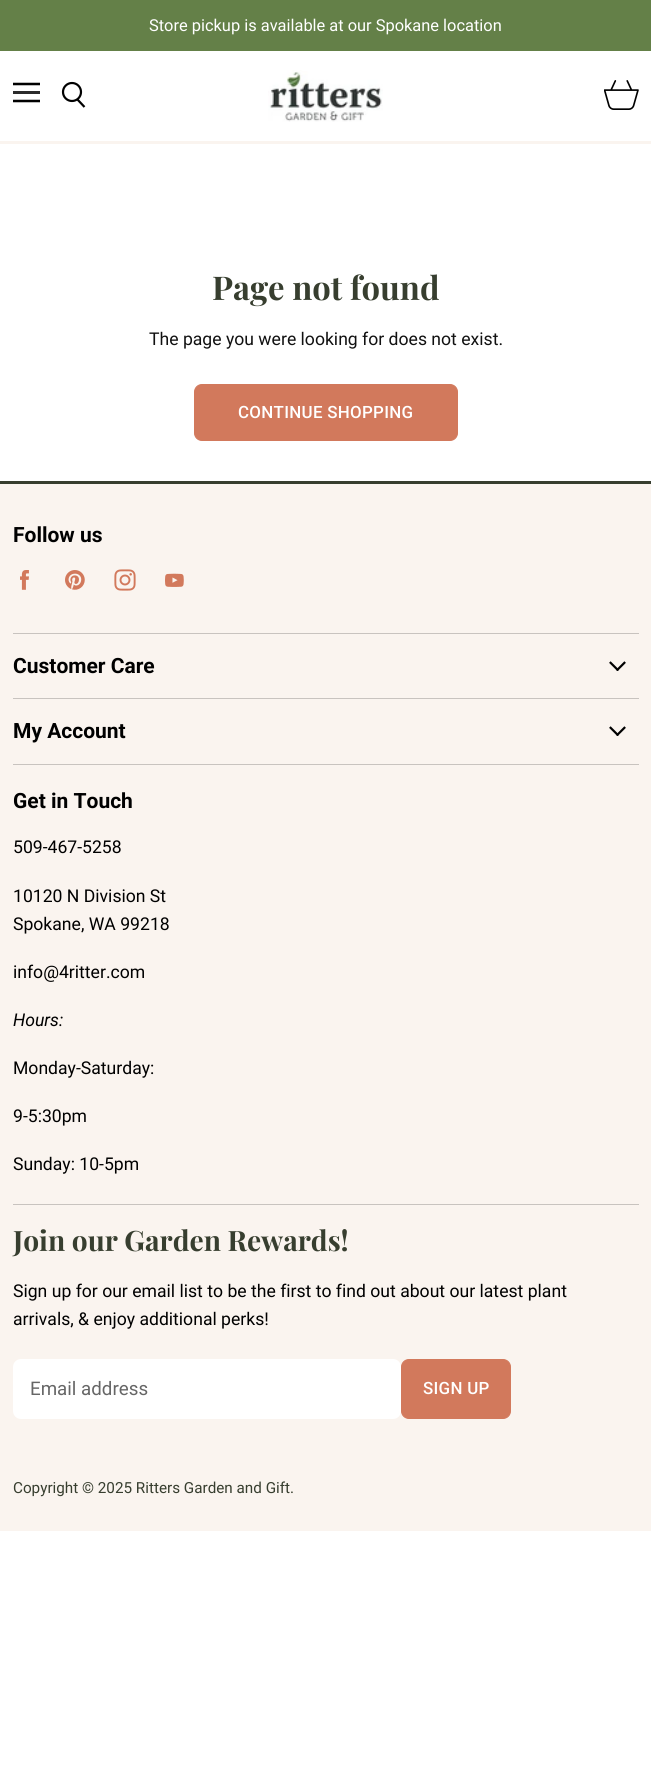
import math
import cairo



def draw_spaced(context, x, y, s, letter, word):
    context.move_to(x, y)
    for ch in s:
        context.show_text(ch)
        context.rel_move_to(letter + word * (ch == ' '), 0)


def rounded_rect(context, x, y, w, h, r):
    context.new_sub_path()
    for i, (u, v) in enumerate([(x + w - r, y + h - r), (x + r, y + h - r), (x + r, y + r), (x + w - r, y + r)]):
        context.arc(u, v, r, i * math.pi / 2, (i + 1) * math.pi / 2)
    context.close_path()


def draw_image(context, path, x, y, w, h):
    context.save()
    context.set_source_surface(cairo.ImageSurface.create_from_png(path), x, y)
    context.rectangle(x, y, w, h)
    context.fill()
    context.restore()


def draw(context):
    context.set_source_rgb(1, 1, 1)
    context.paint()
    context.set_source_rgb(100 / 255, 128 / 255, 72 / 255)
    context.rectangle(0, 0, 651, 51)
    context.fill()
    context.set_source_rgb(250 / 255, 244 / 255, 239 / 255)
    context.rectangle(0, 141, 651, 3)
    context.fill()
    draw_image(context, "images/1.png", 268, 70, 115, 52)
    context.save()
    context.rectangle(13, 81, 27, 23)
    context.clip()
    context.new_path()
    context.move_to(39, 84)
    context.line_to(14, 84)
    context.set_source_rgb(0, 0, 0)
    context.set_line_width(2.5)
    context.set_line_cap(cairo.LineCap.SQUARE)
    context.set_line_join(cairo.LineJoin.ROUND)
    context.stroke()
    context.restore()
    context.set_source_rgb(43 / 255, 43 / 255, 43 / 255)
    context.rectangle(13, 91, 27, 3)
    context.fill()
    context.save()
    context.rectangle(13, 81, 27, 23)
    context.clip()
    context.new_path()
    context.move_to(39, 101)
    context.line_to(14, 101)
    context.set_source_rgb(0, 0, 0)
    context.set_line_width(2.5)
    context.set_line_cap(cairo.LineCap.SQUARE)
    context.set_line_join(cairo.LineJoin.ROUND)
    context.stroke()
    context.restore()
    context.new_path()
    context.move_to(84.5, 107)
    context.line_to(77, 99)
    context.set_source_rgb(0, 0, 0)
    context.set_line_width(2.2)
    context.stroke()
    context.arc(72, 92, 9, 0, 2 * math.pi)
    context.stroke()
    draw_image(context, "images/2.png", 604, 80, 35, 30)
    context.set_source_rgb(210 / 255, 121 / 255, 92 / 255)
    rounded_rect(context, 194.5, 384.5, 263, 56, 7.5)
    context.fill_preserve()
    context.set_line_width(1)
    context.stroke()
    context.set_source_rgb(250 / 255, 244 / 255, 239 / 255)
    context.rectangle(0, 484, 651, 1047)
    context.fill()
    context.set_source_rgb(55 / 255, 62 / 255, 47 / 255)
    context.rectangle(0, 481, 651, 3)
    context.fill()
    context.set_source_rgb(200 / 255, 195 / 255, 191 / 255)
    context.rectangle(13, 633, 626, 1)
    context.fill()
    draw_image(context, "images/3.png", 20, 570, 9, 20)
    draw_image(context, "images/4.png", 65, 570, 20, 20)
    draw_image(context, "images/5.png", 114, 569, 22, 22)
    draw_image(context, "images/6.png", 165, 573, 19, 14)
    context.rectangle(13, 698, 626, 1)
    context.fill()
    draw_image(context, "images/7.png", 609, 661, 17, 10)
    context.rectangle(13, 764, 626, 1)
    context.fill()
    draw_image(context, "images/7.png", 609, 726, 17, 10)
    context.rectangle(13, 1204, 626, 1)
    context.fill()
    context.set_source_rgb(1, 1, 1)
    rounded_rect(context, 13, 1359, 388, 60, 8)
    context.fill()
    context.set_source_rgb(210 / 255, 121 / 255, 92 / 255)
    rounded_rect(context, 401.5, 1359.5, 109, 59, 7.5)
    context.fill_preserve()
    context.stroke()
    context.select_font_face("Roboto")
    context.set_font_size(16.4)
    context.set_source_rgb(1, 1, 1)
    context.move_to(149, 31)
    context.show_text("Store pickup is available at our Spokane location")
    context.select_font_face("Playfair Display", cairo.FontSlant.NORMAL, cairo.FontWeight.BOLD)
    context.set_font_size(32.75)
    context.set_source_rgb(55 / 255, 62 / 255, 47 / 255)
    context.move_to(212, 300)
    context.show_text("Page not found")
    context.select_font_face("Roboto")
    context.set_font_size(17.6)
    context.set_source_rgb(17 / 255, 17 / 255, 17 / 255)
    context.move_to(149, 345)
    context.show_text("The page you were looking for does not exist.")
    context.select_font_face("Roboto Medium")
    context.set_font_size(16.9)
    context.set_source_rgb(1, 1, 1)
    draw_spaced(context, 238, 418, "CONTINUE SHOPPING", 0.3, 0)
    context.select_font_face("Roboto", cairo.FontSlant.NORMAL, cairo.FontWeight.BOLD)
    context.set_font_size(21)
    context.set_source_rgb(0, 0, 0)
    context.move_to(13, 542)
    context.show_text("Follow us")
    context.move_to(13, 673)
    context.show_text("Customer Care")
    context.move_to(13, 738)
    context.show_text("My Account")
    context.move_to(13, 808)
    context.show_text("Get in Touch")
    context.select_font_face("Roboto")
    context.set_font_size(17.6)
    context.move_to(13, 853)
    context.show_text("509-467-5258")
    context.move_to(13, 902)
    context.show_text("10120 N Division St")
    context.move_to(13, 930)
    context.show_text("Spokane, WA 99218")
    context.move_to(13, 978)
    context.show_text("info@4ritter.com")
    context.select_font_face("Roboto", cairo.FontSlant.ITALIC)
    context.move_to(13, 1026)
    context.show_text("Hours:")
    context.select_font_face("Roboto")
    context.move_to(13, 1074)
    context.show_text("Monday-Saturday:")
    context.move_to(13, 1122)
    context.show_text("9-5:30pm")
    context.move_to(13, 1170)
    context.show_text("Sunday: 10-5pm")
    context.select_font_face("Playfair Display", cairo.FontSlant.NORMAL, cairo.FontWeight.BOLD)
    context.set_font_size(28.1)
    context.set_source_rgb(55 / 255, 62 / 255, 47 / 255)
    context.move_to(13, 1251)
    context.show_text("Join our Garden Rewards!")
    context.select_font_face("Roboto")
    context.set_font_size(17.6)
    context.set_source_rgb(0, 0, 0)
    context.move_to(13, 1297)
    context.show_text("Sign up for our email list to be the first to find out about our latest plant")
    context.move_to(13, 1325)
    context.show_text("arrivals, & enjoy additional perks!")
    context.set_font_size(18.75)
    context.set_source_rgb(102 / 255, 102 / 255, 102 / 255)
    context.move_to(30, 1395)
    context.show_text("Email address")
    context.select_font_face("Roboto Medium")
    context.set_font_size(16.9)
    context.set_source_rgb(1, 1, 1)
    draw_spaced(context, 423, 1394, "SIGN UP", 0.3, 0)
    context.select_font_face("Roboto")
    context.set_font_size(15.25)
    context.set_source_rgb(55 / 255, 62 / 255, 47 / 255)
    context.move_to(13, 1493)
    context.show_text("Copyright © 2025 Ritters Garden and Gift.")


surface = cairo.ImageSurface(cairo.Format.RGB24, 651, 1785)
context = cairo.Context(surface)
options = cairo.FontOptions()
options.set_hint_metrics(cairo.HintMetrics.OFF)
options.set_hint_style(cairo.HintStyle.NONE)
context.set_font_options(options)
context.set_miter_limit(4)
draw(context)
surface.write_to_png("out.png")
